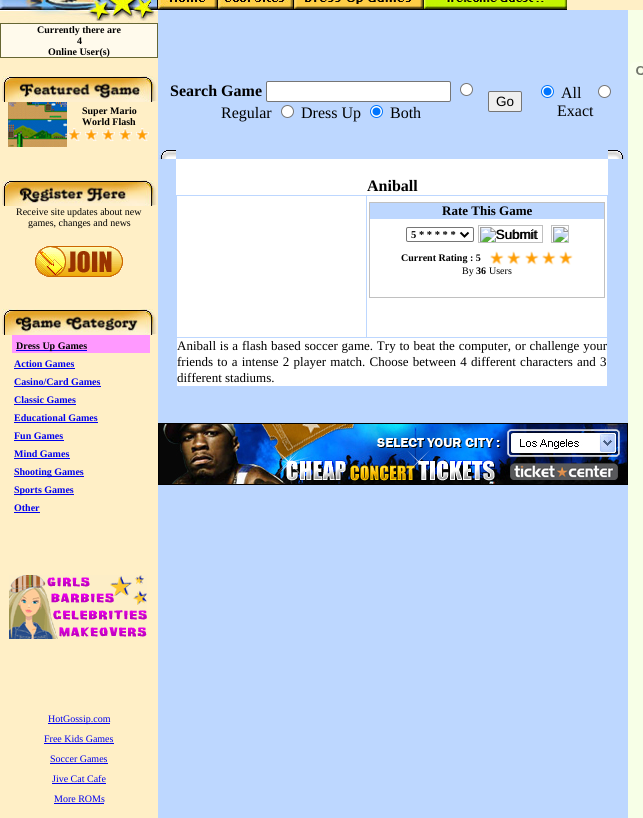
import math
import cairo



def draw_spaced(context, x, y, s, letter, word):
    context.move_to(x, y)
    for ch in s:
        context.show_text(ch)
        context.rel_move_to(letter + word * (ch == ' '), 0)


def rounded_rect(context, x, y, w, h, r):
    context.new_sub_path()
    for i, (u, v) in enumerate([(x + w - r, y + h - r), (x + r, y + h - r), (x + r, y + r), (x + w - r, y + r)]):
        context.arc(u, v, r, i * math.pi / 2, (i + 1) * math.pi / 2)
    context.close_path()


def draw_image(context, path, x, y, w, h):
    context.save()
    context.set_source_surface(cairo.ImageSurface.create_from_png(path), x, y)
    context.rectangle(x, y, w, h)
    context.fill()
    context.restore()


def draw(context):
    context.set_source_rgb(1, 239 / 255, 198 / 255)
    context.paint()
    draw_image(context, "images/1.png", 0, 0, 157, 10)
    draw_image(context, "images/2.png", 157, 0, 60, 10)
    draw_image(context, "images/3.png", 217, 0, 76, 10)
    draw_image(context, "images/4.png", 293, 0, 130, 10)
    draw_image(context, "images/5.png", 423, 0, 144, 10)
    draw_image(context, "images/6.png", 0, 10, 158, 13)
    context.set_source_rgb(102 / 255, 102 / 255, 51 / 255)
    context.rectangle(0, 23, 158, 1)
    context.fill()
    context.rectangle(157, 23, 1, 35)
    context.fill()
    context.rectangle(0, 57, 158, 1)
    context.fill()
    context.rectangle(0, 23, 1, 35)
    context.fill()
    context.set_source_rgb(1, 250 / 255, 236 / 255)
    context.rectangle(1, 24, 156, 33)
    context.fill()
    draw_image(context, "images/7.png", 2, 76, 155, 26)
    draw_image(context, "images/8.png", 8, 102, 59, 45)
    draw_image(context, "images/9.png", 68, 128, 13, 13)
    draw_image(context, "images/10.png", 85, 128, 13, 13)
    draw_image(context, "images/10.png", 102, 128, 13, 13)
    draw_image(context, "images/10.png", 119, 128, 13, 13)
    draw_image(context, "images/9.png", 136, 128, 13, 13)
    draw_image(context, "images/11.png", 2, 180, 155, 26)
    draw_image(context, "images/12.png", 35, 246, 88, 31)
    draw_image(context, "images/13.png", 2, 309, 155, 26)
    context.set_source_rgb(1, 153 / 255, 1)
    context.rectangle(12, 335, 138, 18)
    context.fill()
    context.set_source_rgb(0, 0, 238 / 255)
    context.rectangle(16, 350, 71, 1)
    context.fill()
    context.rectangle(14, 368, 61, 1)
    context.fill()
    context.rectangle(14, 386, 87, 1)
    context.fill()
    context.rectangle(14, 404, 62, 1)
    context.fill()
    context.rectangle(14, 422, 84, 1)
    context.fill()
    context.rectangle(14, 440, 50, 1)
    context.fill()
    context.rectangle(14, 458, 56, 1)
    context.fill()
    context.rectangle(14, 476, 70, 1)
    context.fill()
    context.rectangle(14, 494, 60, 1)
    context.fill()
    context.rectangle(14, 512, 26, 1)
    context.fill()
    draw_image(context, "images/14.png", 9, 575, 138, 64)
    context.rectangle(48, 723, 62, 1)
    context.fill()
    context.rectangle(44, 743, 70, 1)
    context.fill()
    context.rectangle(50, 763, 58, 1)
    context.fill()
    context.rectangle(52, 783, 54, 1)
    context.fill()
    context.rectangle(54, 803, 50, 1)
    context.fill()
    context.set_source_rgb(189 / 255, 215 / 255, 1)
    context.rectangle(158, 10, 470, 808)
    context.fill()
    context.set_source_rgb(1, 1, 1)
    rounded_rect(context, 266.5, 81.5, 184, 20, 1.5)
    context.fill_preserve()
    context.set_source_rgb(118 / 255, 118 / 255, 118 / 255)
    context.set_line_width(1)
    context.stroke()
    context.set_source_rgb(1, 1, 1)
    context.arc(466.5, 89.5, 6, 0, 2 * math.pi)
    context.fill_preserve()
    context.set_source_rgb(118 / 255, 118 / 255, 118 / 255)
    context.stroke()
    context.set_source_rgb(1, 1, 1)
    context.arc(287.5, 111.5, 6, 0, 2 * math.pi)
    context.fill_preserve()
    context.set_source_rgb(118 / 255, 118 / 255, 118 / 255)
    context.stroke()
    context.set_source_rgb(1, 1, 1)
    context.arc(376.5, 111.5, 6, 0, 2 * math.pi)
    context.fill_preserve()
    context.set_source_rgb(0, 117 / 255, 1)
    context.stroke()
    context.arc(376.5, 111.5, 4, 0, 2 * math.pi)
    context.fill()
    context.set_source_rgb(239 / 255, 239 / 255, 239 / 255)
    rounded_rect(context, 488.5, 91.5, 33, 20, 1.5)
    context.fill_preserve()
    context.set_source_rgb(118 / 255, 118 / 255, 118 / 255)
    context.stroke()
    context.set_source_rgb(1, 1, 1)
    context.arc(547.5, 91.5, 6, 0, 2 * math.pi)
    context.fill_preserve()
    context.set_source_rgb(0, 117 / 255, 1)
    context.stroke()
    context.arc(547.5, 91.5, 4, 0, 2 * math.pi)
    context.fill()
    context.set_source_rgb(1, 1, 1)
    context.arc(604.5, 91.5, 6, 0, 2 * math.pi)
    context.fill_preserve()
    context.set_source_rgb(118 / 255, 118 / 255, 118 / 255)
    context.stroke()
    draw_image(context, "images/15.png", 158, 150, 18, 9)
    draw_image(context, "images/16.png", 608, 150, 18, 9)
    context.set_source_rgb(1, 1, 1)
    context.rectangle(176, 159, 432, 227)
    context.fill()
    context.set_source_rgb(189 / 255, 215 / 255, 1)
    context.rectangle(176, 195, 432, 1)
    context.fill()
    context.rectangle(607, 195, 1, 192)
    context.fill()
    context.rectangle(176, 195, 1, 192)
    context.fill()
    context.rectangle(176, 337, 432, 1)
    context.fill()
    context.rectangle(366, 195, 1, 143)
    context.fill()
    context.rectangle(370, 203, 234, 16)
    context.fill()
    context.set_source_rgb(192 / 255, 192 / 255, 192 / 255)
    context.rectangle(369, 202, 236, 1)
    context.fill()
    context.rectangle(604, 218, 1, 80)
    context.fill()
    context.rectangle(604, 202, 1, 17)
    context.fill()
    context.rectangle(369, 297, 236, 1)
    context.fill()
    context.rectangle(369, 218, 1, 80)
    context.fill()
    context.rectangle(369, 202, 1, 17)
    context.fill()
    rounded_rect(context, 406.5, 227.5, 67, 14, 1.5)
    context.set_source_rgb(118 / 255, 118 / 255, 118 / 255)
    context.stroke()
    context.new_path()
    context.move_to(460.5, 232.5)
    context.line_to(464.5, 236.5)
    context.line_to(468.5, 232.5)
    context.set_source_rgb(0, 0, 0)
    context.set_line_width(2)
    context.stroke()
    draw_image(context, "images/17.png", 478, 225, 65, 18)
    draw_image(context, "images/18.png", 551, 225, 18, 18)
    draw_image(context, "images/19.png", 490, 251, 14, 14)
    draw_image(context, "images/19.png", 507, 251, 14, 14)
    draw_image(context, "images/20.png", 525, 251, 14, 14)
    draw_image(context, "images/19.png", 542, 251, 14, 14)
    draw_image(context, "images/19.png", 559, 251, 14, 14)
    context.rectangle(158.5, 423.5, 469, 61)
    context.set_line_width(1)
    context.stroke()
    draw_image(context, "images/21.png", 159, 424, 468, 60)
    context.set_source_rgb(247 / 255, 1, 231 / 255)
    context.rectangle(628, 10, 15, 808)
    context.fill()
    draw_image(context, "images/22.png", 630, 62, 13, 18)
    context.select_font_face("Liberation Serif", cairo.FontSlant.NORMAL, cairo.FontWeight.BOLD)
    context.set_font_size(10)
    context.set_source_rgb(0, 0, 0)
    context.move_to(37, 33)
    context.show_text("Currently there are")
    context.move_to(77, 44)
    context.show_text("4")
    context.move_to(48, 55)
    context.show_text("Online User(s)")
    context.move_to(82, 114)
    context.show_text("Super Mario")
    context.move_to(82, 125)
    context.show_text("World Flash")
    context.select_font_face("Liberation Serif")
    context.move_to(16, 215)
    context.show_text("Receive site updates about new")
    context.move_to(28, 226)
    context.show_text("games, changes and news")
    context.select_font_face("Liberation Serif", cairo.FontSlant.NORMAL, cairo.FontWeight.BOLD)
    context.move_to(16, 349)
    context.show_text("Dress Up Games")
    context.set_source_rgb(0, 0, 238 / 255)
    context.move_to(14, 367)
    context.show_text("Action Games")
    context.move_to(14, 385)
    context.show_text("Casino/Card Games")
    context.move_to(14, 403)
    context.show_text("Classic Games")
    context.move_to(14, 421)
    context.show_text("Educational Games")
    context.move_to(14, 439)
    context.show_text("Fun Games")
    context.move_to(14, 457)
    context.show_text("Mind Games")
    context.move_to(14, 475)
    context.show_text("Shooting Games")
    context.move_to(14, 493)
    context.show_text("Sports Games")
    context.move_to(14, 511)
    context.show_text("Other")
    context.select_font_face("Liberation Serif")
    context.move_to(48, 722)
    context.show_text("HotGossip.com")
    context.move_to(44, 742)
    context.show_text("Free Kids Games")
    context.move_to(50, 762)
    context.show_text("Soccer Games")
    context.move_to(52, 782)
    context.show_text("Jive Cat Cafe")
    context.move_to(54, 802)
    context.show_text("More ROMs")
    context.select_font_face("Liberation Serif", cairo.FontSlant.NORMAL, cairo.FontWeight.BOLD)
    context.set_font_size(16)
    context.set_source_rgb(0, 0, 0)
    context.move_to(170, 96)
    context.show_text("Search Game")
    context.select_font_face("Liberation Serif")
    context.move_to(221, 118)
    context.show_text("Regular")
    context.move_to(301, 118)
    context.show_text("Dress Up")
    context.move_to(390, 118)
    context.show_text("Both")
    context.select_font_face("Liberation Sans")
    context.set_font_size(13.5)
    context.move_to(496, 106)
    context.show_text("Go")
    context.select_font_face("Liberation Serif")
    context.set_font_size(16)
    context.move_to(561, 98)
    context.show_text("All")
    context.move_to(557, 116)
    context.show_text("Exact")
    context.select_font_face("Liberation Serif", cairo.FontSlant.NORMAL, cairo.FontWeight.BOLD)
    context.move_to(367, 191)
    context.show_text("Aniball")
    context.set_font_size(13)
    context.move_to(442, 215)
    context.show_text("Rate This Game")
    context.set_font_size(10.5)
    context.move_to(411, 238)
    context.show_text("5 * * * * *")
    context.select_font_face("Liberation Sans")
    context.set_font_size(13.5)
    context.move_to(496, 239)
    context.show_text("Submit")
    context.select_font_face("Liberation Serif", cairo.FontSlant.NORMAL, cairo.FontWeight.BOLD)
    context.set_font_size(10)
    context.move_to(401, 261)
    context.show_text("Current Rating : 5")
    context.select_font_face("Liberation Serif")
    context.move_to(462, 274)
    context.show_text("By")
    context.select_font_face("Liberation Serif", cairo.FontSlant.NORMAL, cairo.FontWeight.BOLD)
    context.move_to(476, 274)
    context.show_text("36")
    context.select_font_face("Liberation Serif")
    context.move_to(489, 274)
    context.show_text("Users")
    context.set_font_size(13)
    draw_spaced(context, 177, 350, "Aniball is a flash based soccer game. Try to beat the computer, or challenge your", 0, 0.6)
    draw_spaced(context, 177, 366, "friends to a intense 2 player match. Choose between 4 different characters and 3", 0, 1)
    context.move_to(177, 382)
    context.show_text("different stadiums.")


surface = cairo.ImageSurface(cairo.Format.RGB24, 643, 818)
context = cairo.Context(surface)
options = cairo.FontOptions()
options.set_hint_metrics(cairo.HintMetrics.OFF)
options.set_hint_style(cairo.HintStyle.NONE)
context.set_font_options(options)
context.set_miter_limit(4)
draw(context)
surface.write_to_png("out.png")
